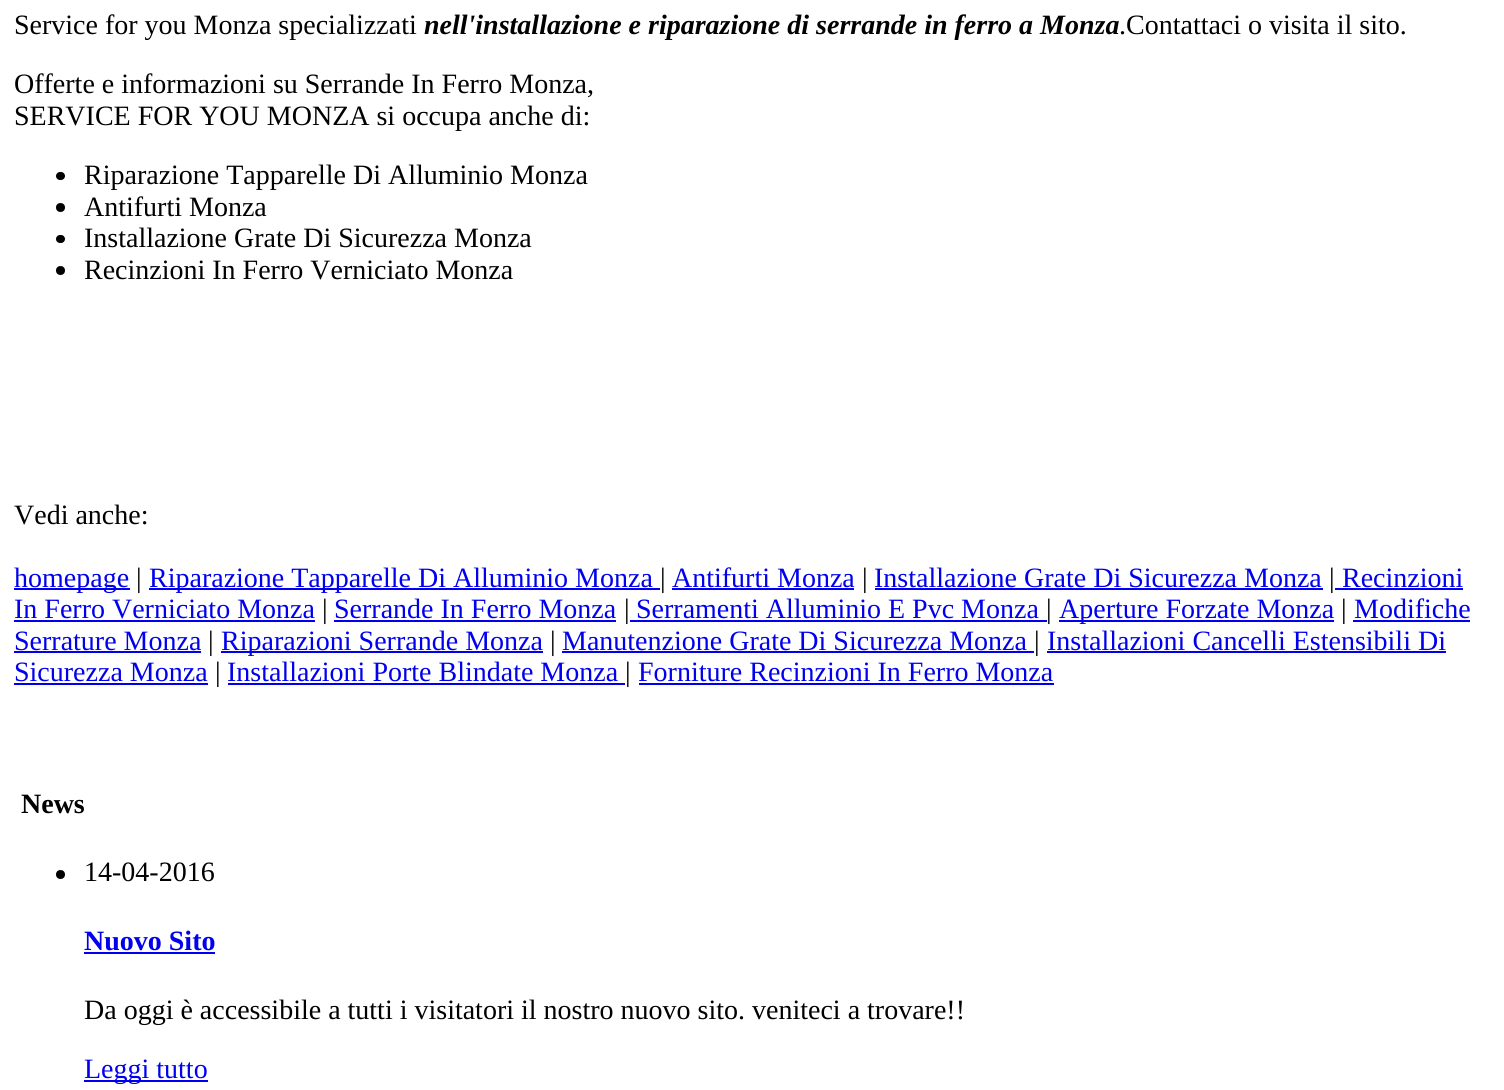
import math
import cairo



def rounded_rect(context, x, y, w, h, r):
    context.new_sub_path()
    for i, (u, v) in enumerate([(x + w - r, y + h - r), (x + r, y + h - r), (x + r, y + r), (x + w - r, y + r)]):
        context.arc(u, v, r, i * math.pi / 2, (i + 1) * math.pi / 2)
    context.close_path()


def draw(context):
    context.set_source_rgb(1, 1, 1)
    context.paint()
    context.set_source_rgb(0, 0, 0)
    rounded_rect(context, 56, 172, 9, 8, 4)
    context.fill()
    context.arc(60.5, 207.5, 4.5, 0, 2 * math.pi)
    context.fill()
    rounded_rect(context, 56, 235, 9, 8, 4)
    context.fill()
    context.arc(60.5, 270.5, 4.5, 0, 2 * math.pi)
    context.fill()
    context.set_source_rgb(0, 0, 238 / 255)
    context.rectangle(14, 588, 116, 2)
    context.fill()
    context.rectangle(149, 588, 511, 2)
    context.fill()
    context.rectangle(672, 588, 182, 2)
    context.fill()
    context.rectangle(875, 588, 448, 2)
    context.fill()
    context.rectangle(1335, 588, 128, 2)
    context.fill()
    context.rectangle(14, 620, 301, 2)
    context.fill()
    context.rectangle(334, 620, 282, 2)
    context.fill()
    context.rectangle(630, 620, 417, 2)
    context.fill()
    context.rectangle(1059, 620, 275, 2)
    context.fill()
    context.rectangle(1353, 620, 117, 2)
    context.fill()
    context.rectangle(14, 651, 187, 2)
    context.fill()
    context.rectangle(221, 651, 322, 2)
    context.fill()
    context.rectangle(562, 651, 472, 2)
    context.fill()
    context.rectangle(1047, 651, 399, 2)
    context.fill()
    context.rectangle(14, 683, 194, 2)
    context.fill()
    context.rectangle(228, 683, 397, 2)
    context.fill()
    context.rectangle(639, 683, 415, 2)
    context.fill()
    context.set_source_rgb(0, 0, 0)
    context.arc(60.5, 874.5, 4.5, 0, 2 * math.pi)
    context.fill()
    context.set_source_rgb(0, 0, 238 / 255)
    context.rectangle(84, 952, 131, 2)
    context.fill()
    context.rectangle(84, 1080, 124, 2)
    context.fill()
    context.select_font_face("Liberation Serif")
    context.set_font_size(28)
    context.set_source_rgb(0, 0, 0)
    context.move_to(14, 34)
    context.show_text("Service for you Monza specializzati")
    context.select_font_face("Liberation Serif", cairo.FontSlant.ITALIC, cairo.FontWeight.BOLD)
    context.move_to(424, 34)
    context.show_text("nell'installazione e riparazione di serrande in ferro a Monza")
    context.select_font_face("Liberation Serif")
    context.move_to(1119, 34)
    context.show_text(".Contattaci o visita il sito.")
    context.move_to(14, 93)
    context.show_text("Offerte e informazioni su Serrande In Ferro Monza,")
    context.move_to(14, 125)
    context.show_text("SERVICE FOR YOU MONZA si occupa anche di:")
    context.move_to(84, 184)
    context.show_text("Riparazione Tapparelle Di Alluminio Monza")
    context.move_to(84, 216)
    context.show_text("Antifurti Monza")
    context.move_to(84, 247)
    context.show_text("Installazione Grate Di Sicurezza Monza")
    context.move_to(84, 279)
    context.show_text("Recinzioni In Ferro Verniciato Monza")
    context.move_to(14, 524)
    context.show_text("Vedi anche:")
    context.set_source_rgb(0, 0, 238 / 255)
    context.move_to(14, 587)
    context.show_text("homepage")
    context.set_source_rgb(0, 0, 0)
    context.move_to(136, 587)
    context.show_text("|")
    context.set_source_rgb(0, 0, 238 / 255)
    context.move_to(149, 587)
    context.show_text("Riparazione Tapparelle Di Alluminio Monza")
    context.set_source_rgb(0, 0, 0)
    context.move_to(660, 587)
    context.show_text("|")
    context.set_source_rgb(0, 0, 238 / 255)
    context.move_to(672, 587)
    context.show_text("Antifurti Monza")
    context.set_source_rgb(0, 0, 0)
    context.move_to(862, 587)
    context.show_text("|")
    context.set_source_rgb(0, 0, 238 / 255)
    context.move_to(874, 587)
    context.show_text("Installazione Grate Di Sicurezza Monza")
    context.set_source_rgb(0, 0, 0)
    context.move_to(1329, 587)
    context.show_text("|")
    context.set_source_rgb(0, 0, 238 / 255)
    context.move_to(1342, 587)
    context.show_text("Recinzioni")
    context.move_to(14, 618)
    context.show_text("In Ferro Verniciato Monza")
    context.set_source_rgb(0, 0, 0)
    context.move_to(322, 618)
    context.show_text("|")
    context.set_source_rgb(0, 0, 238 / 255)
    context.move_to(334, 618)
    context.show_text("Serrande In Ferro Monza")
    context.set_source_rgb(0, 0, 0)
    context.move_to(624, 618)
    context.show_text("|")
    context.set_source_rgb(0, 0, 238 / 255)
    context.move_to(636, 618)
    context.show_text("Serramenti Alluminio E Pvc Monza")
    context.set_source_rgb(0, 0, 0)
    context.move_to(1046, 618)
    context.show_text("|")
    context.set_source_rgb(0, 0, 238 / 255)
    context.move_to(1059, 618)
    context.show_text("Aperture Forzate Monza")
    context.set_source_rgb(0, 0, 0)
    context.move_to(1341, 618)
    context.show_text("|")
    context.set_source_rgb(0, 0, 238 / 255)
    context.move_to(1354, 618)
    context.show_text("Modifiche")
    context.move_to(14, 650)
    context.show_text("Serrature Monza")
    context.set_source_rgb(0, 0, 0)
    context.move_to(208, 650)
    context.show_text("|")
    context.set_source_rgb(0, 0, 238 / 255)
    context.move_to(221, 650)
    context.show_text("Riparazioni Serrande Monza")
    context.set_source_rgb(0, 0, 0)
    context.move_to(550, 650)
    context.show_text("|")
    context.set_source_rgb(0, 0, 238 / 255)
    context.move_to(562, 650)
    context.show_text("Manutenzione Grate Di Sicurezza Monza")
    context.set_source_rgb(0, 0, 0)
    context.move_to(1034, 650)
    context.show_text("|")
    context.set_source_rgb(0, 0, 238 / 255)
    context.move_to(1047, 650)
    context.show_text("Installazioni Cancelli Estensibili Di")
    context.move_to(14, 681)
    context.show_text("Sicurezza Monza")
    context.set_source_rgb(0, 0, 0)
    context.move_to(215, 681)
    context.show_text("|")
    context.set_source_rgb(0, 0, 238 / 255)
    context.move_to(227, 681)
    context.show_text("Installazioni Porte Blindate Monza")
    context.set_source_rgb(0, 0, 0)
    context.move_to(625, 681)
    context.show_text("|")
    context.set_source_rgb(0, 0, 238 / 255)
    context.move_to(638, 681)
    context.show_text("Forniture Recinzioni In Ferro Monza")
    context.select_font_face("Liberation Serif", cairo.FontSlant.NORMAL, cairo.FontWeight.BOLD)
    context.set_source_rgb(0, 0, 0)
    context.move_to(21, 813)
    context.show_text("News")
    context.select_font_face("Liberation Serif")
    context.move_to(84, 881)
    context.show_text("14-04-2016")
    context.select_font_face("Liberation Serif", cairo.FontSlant.NORMAL, cairo.FontWeight.BOLD)
    context.set_source_rgb(0, 0, 238 / 255)
    context.move_to(84, 950)
    context.show_text("Nuovo Sito")
    context.select_font_face("Liberation Serif")
    context.set_source_rgb(0, 0, 0)
    context.move_to(84, 1019)
    context.show_text("Da oggi è accessibile a tutti i visitatori il nostro nuovo sito. veniteci a trovare!!")
    context.set_source_rgb(0, 0, 238 / 255)
    context.move_to(84, 1078)
    context.show_text("Leggi tutto")


surface = cairo.ImageSurface(cairo.Format.RGB24, 1504, 1090)
context = cairo.Context(surface)
options = cairo.FontOptions()
options.set_hint_metrics(cairo.HintMetrics.OFF)
options.set_hint_style(cairo.HintStyle.NONE)
context.set_font_options(options)
context.set_miter_limit(4)
draw(context)
surface.write_to_png("out.png")
